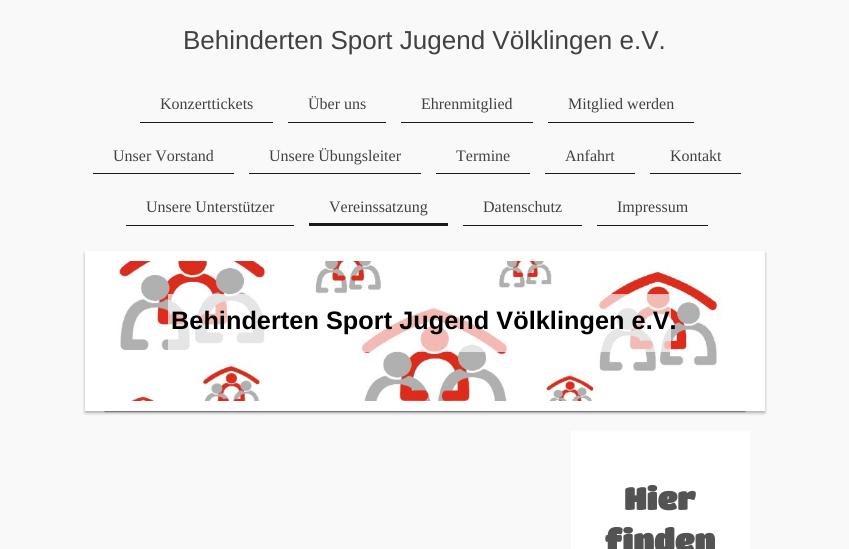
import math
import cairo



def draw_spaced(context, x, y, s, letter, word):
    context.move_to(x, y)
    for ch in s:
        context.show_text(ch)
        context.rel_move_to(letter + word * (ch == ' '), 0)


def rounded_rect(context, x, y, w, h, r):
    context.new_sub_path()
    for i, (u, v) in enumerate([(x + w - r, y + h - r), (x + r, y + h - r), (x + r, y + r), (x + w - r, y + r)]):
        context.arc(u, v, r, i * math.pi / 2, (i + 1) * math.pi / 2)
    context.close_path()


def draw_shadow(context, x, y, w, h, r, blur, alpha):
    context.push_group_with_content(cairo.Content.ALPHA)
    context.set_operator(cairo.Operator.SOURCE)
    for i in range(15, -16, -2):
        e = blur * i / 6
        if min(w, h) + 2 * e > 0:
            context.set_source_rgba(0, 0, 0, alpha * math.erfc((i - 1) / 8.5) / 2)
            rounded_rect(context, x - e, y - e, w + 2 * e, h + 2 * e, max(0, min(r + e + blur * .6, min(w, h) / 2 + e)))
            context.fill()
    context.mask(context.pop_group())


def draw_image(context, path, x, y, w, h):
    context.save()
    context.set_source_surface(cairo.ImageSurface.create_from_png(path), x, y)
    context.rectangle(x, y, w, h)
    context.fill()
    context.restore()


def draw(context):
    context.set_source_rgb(249 / 255, 249 / 255, 249 / 255)
    context.paint()
    context.set_source_rgb(26 / 255, 26 / 255, 26 / 255)
    context.rectangle(140, 122, 133, 1)
    context.fill()
    context.rectangle(288, 122, 98, 1)
    context.fill()
    context.rectangle(401, 122, 132, 1)
    context.fill()
    context.rectangle(548, 122, 146, 1)
    context.fill()
    context.rectangle(93, 173, 141, 1)
    context.fill()
    context.rectangle(249, 173, 172, 1)
    context.fill()
    context.rectangle(436, 173, 94, 1)
    context.fill()
    context.rectangle(545, 173, 90, 1)
    context.fill()
    context.rectangle(650, 173, 91, 1)
    context.fill()
    context.rectangle(126, 225, 168, 1)
    context.fill()
    context.rectangle(309, 223, 139, 3)
    context.fill()
    context.rectangle(463, 225, 119, 1)
    context.fill()
    context.rectangle(597, 225, 111, 1)
    context.fill()
    context.set_source_rgb(0, 0, 0)
    draw_shadow(context, 85, 253, 680, 160, 0, 1.5, 0.3)
    draw_shadow(context, 105, 291, 640, 120, 0, 1, 1)
    context.rectangle(90, 256, 670, 150)
    context.set_source_rgb(1, 1, 1)
    context.set_line_width(10)
    context.stroke()
    draw_image(context, "images/1.png", 95, 261, 660, 140)
    context.set_source_rgba(1, 1, 1, 0.67)
    context.rectangle(168, 294, 503, 58)
    context.fill()
    context.set_source_rgb(1, 1, 1)
    context.rectangle(571, 431, 179, 118)
    context.fill()
    context.select_font_face("Liberation Sans")
    context.set_font_size(26)
    context.set_source_rgb(65 / 255, 65 / 255, 65 / 255)
    context.move_to(183, 49)
    context.show_text("Behinderten Sport Jugend Völklingen e.V.")
    context.select_font_face("Liberation Serif")
    context.set_font_size(16)
    context.move_to(160, 109)
    context.show_text("Konzerttickets")
    context.move_to(308, 109)
    context.show_text("Über uns")
    context.move_to(421, 109)
    context.show_text("Ehrenmitglied")
    context.move_to(568, 109)
    context.show_text("Mitglied werden")
    context.move_to(113, 161)
    context.show_text("Unser Vorstand")
    context.move_to(269, 161)
    context.show_text("Unsere Übungsleiter")
    context.move_to(456, 161)
    context.show_text("Termine")
    context.move_to(565, 161)
    context.show_text("Anfahrt")
    context.move_to(670, 161)
    context.show_text("Kontakt")
    context.move_to(146, 212)
    context.show_text("Unsere Unterstützer")
    context.move_to(329, 212)
    context.show_text("Vereinssatzung")
    context.move_to(483, 212)
    context.show_text("Datenschutz")
    context.move_to(617, 212)
    context.show_text("Impressum")
    context.select_font_face("Liberation Sans", cairo.FontSlant.NORMAL, cairo.FontWeight.BOLD)
    context.set_font_size(25.25)
    context.set_source_rgb(0, 0, 0)
    draw_spaced(context, 171, 329, "Behinderten Sport Jugend Völklingen e.V.", 0.05, 0)
    context.select_font_face("Titan One", cairo.FontSlant.NORMAL, cairo.FontWeight.BOLD)
    context.set_font_size(31)
    context.set_source_rgb(83 / 255, 83 / 255, 83 / 255)
    context.move_to(624, 510)
    context.show_text("Hier")
    context.move_to(605, 552)
    context.show_text("finden")


surface = cairo.ImageSurface(cairo.Format.RGB24, 849, 549)
context = cairo.Context(surface)
options = cairo.FontOptions()
options.set_hint_metrics(cairo.HintMetrics.OFF)
options.set_hint_style(cairo.HintStyle.NONE)
context.set_font_options(options)
context.set_miter_limit(4)
draw(context)
surface.write_to_png("out.png")
